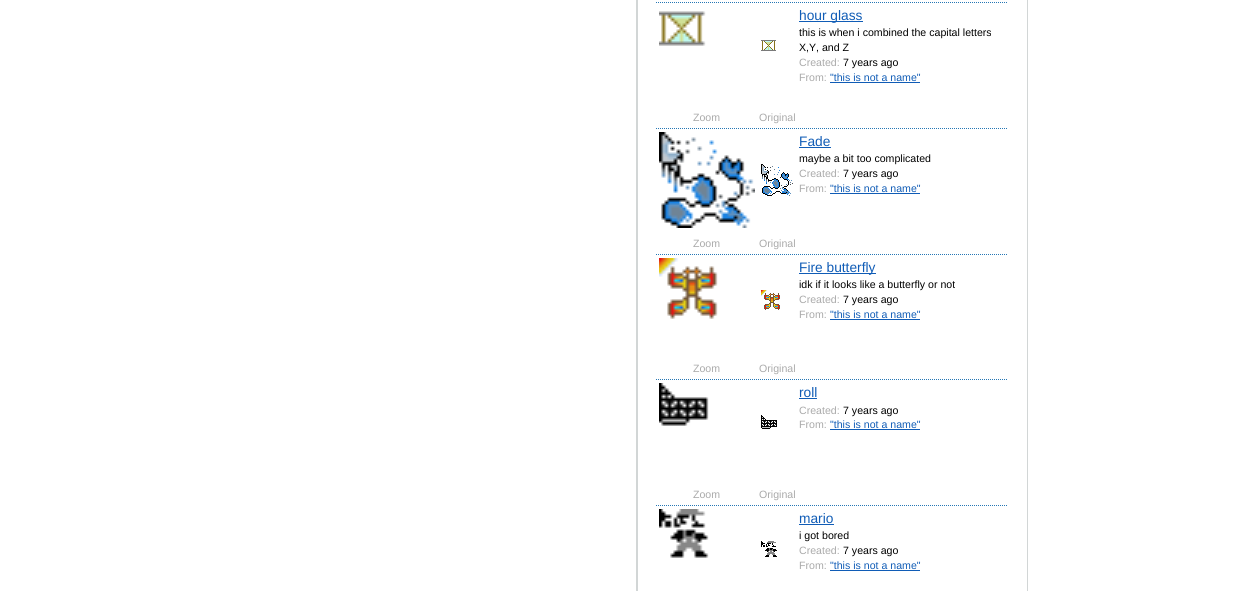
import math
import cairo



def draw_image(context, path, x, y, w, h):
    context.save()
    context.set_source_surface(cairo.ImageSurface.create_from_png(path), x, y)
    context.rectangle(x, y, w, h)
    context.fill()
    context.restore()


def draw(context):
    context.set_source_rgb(1, 1, 1)
    context.paint()
    context.set_source_rgb(210 / 255, 214 / 255, 214 / 255)
    context.rectangle(636, 0, 2, 591)
    context.fill()
    context.rectangle(1027, 0, 1, 591)
    context.fill()
    context.new_path()
    context.move_to(656, 2.5)
    context.line_to(1008, 2.5)
    context.set_source_rgb(38 / 255, 119 / 255, 181 / 255)
    context.set_line_width(1)
    context.set_dash([1, 1])
    context.stroke()
    context.new_path()
    context.move_to(656, 128.5)
    context.line_to(1008, 128.5)
    context.stroke()
    draw_image(context, "images/1.png", 659, 11, 47, 35)
    draw_image(context, "images/2.png", 761, 40, 15, 11)
    context.set_source_rgb(16 / 255, 92 / 255, 182 / 255)
    context.rectangle(799, 21, 64, 1)
    context.fill()
    context.rectangle(830, 82, 90, 1)
    context.fill()
    context.new_path()
    context.move_to(656, 254.5)
    context.line_to(1008, 254.5)
    context.set_source_rgb(38 / 255, 119 / 255, 181 / 255)
    context.stroke()
    draw_image(context, "images/3.png", 659, 132, 96, 96)
    draw_image(context, "images/4.png", 761, 164, 32, 32)
    context.set_source_rgb(16 / 255, 92 / 255, 182 / 255)
    context.rectangle(799, 147, 32, 1)
    context.fill()
    context.rectangle(830, 193, 90, 1)
    context.fill()
    context.new_path()
    context.move_to(656, 379.5)
    context.line_to(1008, 379.5)
    context.set_source_rgb(38 / 255, 119 / 255, 181 / 255)
    context.stroke()
    draw_image(context, "images/5.png", 659, 258, 59, 61)
    draw_image(context, "images/6.png", 761, 290, 19, 20)
    context.set_source_rgb(16 / 255, 92 / 255, 182 / 255)
    context.rectangle(799, 273, 77, 1)
    context.fill()
    context.rectangle(830, 319, 90, 1)
    context.fill()
    context.new_path()
    context.move_to(656, 505.5)
    context.line_to(1008, 505.5)
    context.set_source_rgb(38 / 255, 119 / 255, 181 / 255)
    context.stroke()
    draw_image(context, "images/7.png", 659, 383, 50, 43)
    draw_image(context, "images/8.png", 761, 415, 16, 14)
    context.set_source_rgb(16 / 255, 92 / 255, 182 / 255)
    context.rectangle(799, 398, 18, 1)
    context.fill()
    context.rectangle(830, 429, 90, 1)
    context.fill()
    draw_image(context, "images/9.png", 659, 509, 50, 49)
    draw_image(context, "images/10.png", 761, 541, 16, 16)
    context.rectangle(799, 524, 35, 1)
    context.fill()
    context.rectangle(830, 570, 90, 1)
    context.fill()
    context.select_font_face("Liberation Sans")
    context.set_font_size(13.75)
    context.move_to(799, 20)
    context.show_text("hour glass")
    context.set_font_size(10.6)
    context.set_source_rgb(0, 0, 0)
    context.move_to(799, 36)
    context.show_text("this is when i combined the capital letters")
    context.move_to(799, 51)
    context.show_text("X,Y, and Z")
    context.set_source_rgb(170 / 255, 170 / 255, 170 / 255)
    context.move_to(799, 66)
    context.show_text("Created:")
    context.set_source_rgb(0, 0, 0)
    context.move_to(843, 66)
    context.show_text("7 years ago")
    context.set_source_rgb(170 / 255, 170 / 255, 170 / 255)
    context.move_to(799, 81)
    context.show_text("From:")
    context.set_source_rgb(16 / 255, 92 / 255, 182 / 255)
    context.move_to(830, 81)
    context.show_text("\"this is not a name\"")
    context.set_source_rgb(170 / 255, 170 / 255, 170 / 255)
    context.move_to(693, 121)
    context.show_text("Zoom")
    context.move_to(759, 121)
    context.show_text("Original")
    context.set_font_size(13.75)
    context.set_source_rgb(16 / 255, 92 / 255, 182 / 255)
    context.move_to(799, 146)
    context.show_text("Fade")
    context.set_font_size(10.6)
    context.set_source_rgb(0, 0, 0)
    context.move_to(799, 162)
    context.show_text("maybe a bit too complicated")
    context.set_source_rgb(170 / 255, 170 / 255, 170 / 255)
    context.move_to(799, 177)
    context.show_text("Created:")
    context.set_source_rgb(0, 0, 0)
    context.move_to(843, 177)
    context.show_text("7 years ago")
    context.set_source_rgb(170 / 255, 170 / 255, 170 / 255)
    context.move_to(799, 192)
    context.show_text("From:")
    context.set_source_rgb(16 / 255, 92 / 255, 182 / 255)
    context.move_to(830, 192)
    context.show_text("\"this is not a name\"")
    context.set_source_rgb(170 / 255, 170 / 255, 170 / 255)
    context.move_to(693, 247)
    context.show_text("Zoom")
    context.move_to(759, 247)
    context.show_text("Original")
    context.set_font_size(13.75)
    context.set_source_rgb(16 / 255, 92 / 255, 182 / 255)
    context.move_to(799, 272)
    context.show_text("Fire butterfly")
    context.set_font_size(10.6)
    context.set_source_rgb(0, 0, 0)
    context.move_to(799, 288)
    context.show_text("idk if it looks like a butterfly or not")
    context.set_source_rgb(170 / 255, 170 / 255, 170 / 255)
    context.move_to(799, 303)
    context.show_text("Created:")
    context.set_source_rgb(0, 0, 0)
    context.move_to(843, 303)
    context.show_text("7 years ago")
    context.set_source_rgb(170 / 255, 170 / 255, 170 / 255)
    context.move_to(799, 318)
    context.show_text("From:")
    context.set_source_rgb(16 / 255, 92 / 255, 182 / 255)
    context.move_to(830, 318)
    context.show_text("\"this is not a name\"")
    context.set_source_rgb(170 / 255, 170 / 255, 170 / 255)
    context.move_to(693, 372)
    context.show_text("Zoom")
    context.move_to(759, 372)
    context.show_text("Original")
    context.set_font_size(13.75)
    context.set_source_rgb(16 / 255, 92 / 255, 182 / 255)
    context.move_to(799, 397)
    context.show_text("roll")
    context.set_font_size(10.6)
    context.set_source_rgb(170 / 255, 170 / 255, 170 / 255)
    context.move_to(799, 414)
    context.show_text("Created:")
    context.set_source_rgb(0, 0, 0)
    context.move_to(843, 414)
    context.show_text("7 years ago")
    context.set_source_rgb(170 / 255, 170 / 255, 170 / 255)
    context.move_to(799, 428)
    context.show_text("From:")
    context.set_source_rgb(16 / 255, 92 / 255, 182 / 255)
    context.move_to(830, 428)
    context.show_text("\"this is not a name\"")
    context.set_source_rgb(170 / 255, 170 / 255, 170 / 255)
    context.move_to(693, 498)
    context.show_text("Zoom")
    context.move_to(759, 498)
    context.show_text("Original")
    context.set_font_size(13.75)
    context.set_source_rgb(16 / 255, 92 / 255, 182 / 255)
    context.move_to(799, 523)
    context.show_text("mario")
    context.set_font_size(10.6)
    context.set_source_rgb(0, 0, 0)
    context.move_to(799, 539)
    context.show_text("i got bored")
    context.set_source_rgb(170 / 255, 170 / 255, 170 / 255)
    context.move_to(799, 554)
    context.show_text("Created:")
    context.set_source_rgb(0, 0, 0)
    context.move_to(843, 554)
    context.show_text("7 years ago")
    context.set_source_rgb(170 / 255, 170 / 255, 170 / 255)
    context.move_to(799, 569)
    context.show_text("From:")
    context.set_source_rgb(16 / 255, 92 / 255, 182 / 255)
    context.move_to(830, 569)
    context.show_text("\"this is not a name\"")


surface = cairo.ImageSurface(cairo.Format.RGB24, 1241, 591)
context = cairo.Context(surface)
options = cairo.FontOptions()
options.set_hint_metrics(cairo.HintMetrics.OFF)
options.set_hint_style(cairo.HintStyle.NONE)
context.set_font_options(options)
context.set_miter_limit(4)
draw(context)
surface.write_to_png("out.png")
